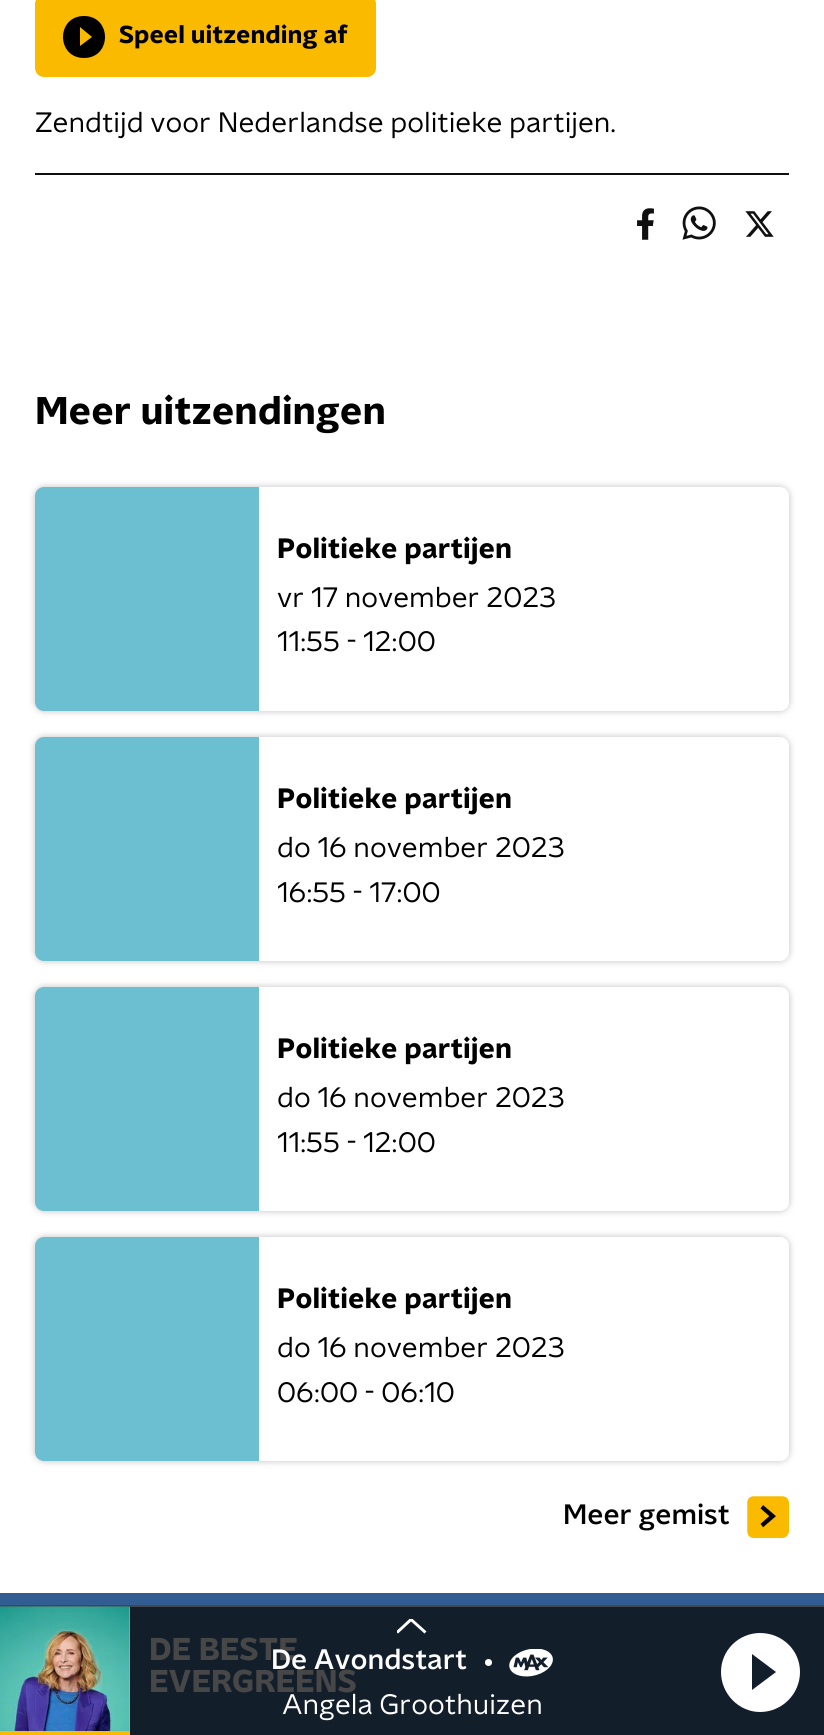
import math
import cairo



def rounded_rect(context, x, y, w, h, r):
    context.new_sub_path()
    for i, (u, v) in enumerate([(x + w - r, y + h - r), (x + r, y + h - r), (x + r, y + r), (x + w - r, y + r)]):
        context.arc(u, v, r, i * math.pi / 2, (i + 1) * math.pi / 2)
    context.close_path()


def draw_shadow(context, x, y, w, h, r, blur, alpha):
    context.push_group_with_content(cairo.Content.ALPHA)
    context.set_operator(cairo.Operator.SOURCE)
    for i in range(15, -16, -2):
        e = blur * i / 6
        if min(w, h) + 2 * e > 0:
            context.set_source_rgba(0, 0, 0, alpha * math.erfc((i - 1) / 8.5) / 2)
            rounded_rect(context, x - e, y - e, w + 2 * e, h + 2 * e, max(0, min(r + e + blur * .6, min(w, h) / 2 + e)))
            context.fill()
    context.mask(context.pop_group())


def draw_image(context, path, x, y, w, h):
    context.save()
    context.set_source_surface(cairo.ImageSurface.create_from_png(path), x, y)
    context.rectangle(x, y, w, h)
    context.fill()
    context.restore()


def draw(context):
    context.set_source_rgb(1, 1, 1)
    context.paint()
    context.set_source_rgb(250 / 255, 186 / 255, 0)
    rounded_rect(context, 35, -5, 341, 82, 9)
    context.fill()
    context.set_source_rgb(0, 0, 0)
    context.new_path()
    context.move_to(84, 16)
    context.curve_to(56, 16, 56, 58, 84, 58)
    context.curve_to(112, 58, 112, 16, 84, 16)
    context.close_path()
    context.move_to(80, 46)
    context.line_to(80, 27)
    context.line_to(92, 37)
    context.close_path()
    context.fill()
    context.set_source_rgb(16 / 255, 16 / 255, 16 / 255)
    context.rectangle(35, 173, 754, 2)
    context.fill()
    draw_image(context, "images/1.png", 637, 208, 17, 32)
    draw_image(context, "images/2.png", 682, 206, 34, 34)
    draw_image(context, "images/3.png", 745, 211, 29, 26)
    context.set_source_rgb(0, 0, 0)
    draw_shadow(context, 35, 487, 754, 224, 9, 3.5, 0.25)
    context.set_source_rgb(108 / 255, 190 / 255, 209 / 255)
    context.new_path()
    context.move_to(44, 487)
    context.line_to(259, 487)
    context.line_to(259, 711)
    context.line_to(44, 711)
    context.curve_to(39, 711, 35, 707, 35, 702)
    context.line_to(35, 496)
    context.curve_to(35, 491, 39, 487, 44, 487)
    context.close_path()
    context.fill()
    context.set_source_rgb(1, 1, 1)
    context.new_path()
    context.move_to(259, 487)
    context.line_to(780, 487)
    context.curve_to(785, 487, 789, 491, 789, 496)
    context.line_to(789, 702)
    context.curve_to(789, 707, 785, 711, 780, 711)
    context.line_to(259, 711)
    context.close_path()
    context.fill()
    context.set_source_rgb(0, 0, 0)
    draw_shadow(context, 35, 737, 754, 224, 9, 3.5, 0.25)
    context.set_source_rgb(108 / 255, 190 / 255, 209 / 255)
    context.new_path()
    context.move_to(44, 737)
    context.line_to(259, 737)
    context.line_to(259, 961)
    context.line_to(44, 961)
    context.curve_to(39, 961, 35, 957, 35, 952)
    context.line_to(35, 746)
    context.curve_to(35, 741, 39, 737, 44, 737)
    context.close_path()
    context.fill()
    context.set_source_rgb(1, 1, 1)
    context.new_path()
    context.move_to(259, 737)
    context.line_to(780, 737)
    context.curve_to(785, 737, 789, 741, 789, 746)
    context.line_to(789, 952)
    context.curve_to(789, 957, 785, 961, 780, 961)
    context.line_to(259, 961)
    context.close_path()
    context.fill()
    context.set_source_rgb(0, 0, 0)
    draw_shadow(context, 35, 987, 754, 224, 9, 3.5, 0.25)
    context.set_source_rgb(108 / 255, 190 / 255, 209 / 255)
    context.new_path()
    context.move_to(44, 987)
    context.line_to(259, 987)
    context.line_to(259, 1211)
    context.line_to(44, 1211)
    context.curve_to(39, 1211, 35, 1207, 35, 1202)
    context.line_to(35, 996)
    context.curve_to(35, 991, 39, 987, 44, 987)
    context.close_path()
    context.fill()
    context.set_source_rgb(1, 1, 1)
    context.new_path()
    context.move_to(259, 987)
    context.line_to(780, 987)
    context.curve_to(785, 987, 789, 991, 789, 996)
    context.line_to(789, 1202)
    context.curve_to(789, 1207, 785, 1211, 780, 1211)
    context.line_to(259, 1211)
    context.close_path()
    context.fill()
    context.set_source_rgb(0, 0, 0)
    draw_shadow(context, 35, 1237, 754, 224, 9, 3.5, 0.25)
    context.set_source_rgb(108 / 255, 190 / 255, 209 / 255)
    context.new_path()
    context.move_to(44, 1237)
    context.line_to(259, 1237)
    context.line_to(259, 1461)
    context.line_to(44, 1461)
    context.curve_to(39, 1461, 35, 1457, 35, 1452)
    context.line_to(35, 1246)
    context.curve_to(35, 1241, 39, 1237, 44, 1237)
    context.close_path()
    context.fill()
    context.set_source_rgb(1, 1, 1)
    context.new_path()
    context.move_to(259, 1237)
    context.line_to(780, 1237)
    context.curve_to(785, 1237, 789, 1241, 789, 1246)
    context.line_to(789, 1452)
    context.curve_to(789, 1457, 785, 1461, 780, 1461)
    context.line_to(259, 1461)
    context.close_path()
    context.fill()
    draw_image(context, "images/4.png", 747, 1496, 42, 42)
    context.set_source_rgb(50 / 255, 93 / 255, 146 / 255)
    context.rectangle(0, 1593, 824, 12)
    context.fill()
    context.set_source_rgb(19 / 255, 30 / 255, 43 / 255)
    context.rectangle(130, 1607, 694, 128)
    context.fill()
    context.set_source_rgb(68 / 255, 72 / 255, 77 / 255)
    context.rectangle(0, 1605, 824, 2)
    context.fill()
    context.set_source_rgb(250 / 255, 186 / 255, 0)
    context.rectangle(129, 1607, 1, 124)
    context.fill()
    draw_image(context, "images/5.png", 0, 1606, 130, 125)
    context.rectangle(0, 1731, 130, 4)
    context.fill()
    context.save()
    context.rectangle(397, 1619, 32, 16)
    context.clip()
    context.new_path()
    context.move_to(425.5, 1632.5)
    context.line_to(411, 1619.5)
    context.line_to(397, 1632.5)
    context.set_source_rgb(1, 1, 1)
    context.set_line_width(2.9)
    context.stroke()
    context.restore()
    context.set_source_rgb(1, 1, 1)
    context.arc(488.5, 1662.5, 3.5, 0, 2 * math.pi)
    context.fill()
    draw_image(context, "images/6.png", 509, 1649, 44, 28)
    context.new_path()
    context.move_to(760, 1633)
    context.curve_to(739, 1633, 721, 1650, 721, 1672)
    context.curve_to(721, 1694, 739, 1712, 760, 1712)
    context.curve_to(782, 1712, 800, 1694, 800, 1672)
    context.curve_to(800, 1650, 782, 1633, 760, 1633)
    context.close_path()
    context.move_to(752, 1690)
    context.line_to(752, 1654)
    context.line_to(776, 1672)
    context.close_path()
    context.fill()
    context.select_font_face("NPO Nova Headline", cairo.FontSlant.NORMAL, cairo.FontWeight.BOLD)
    context.set_font_size(24.5)
    context.set_source_rgb(0, 0, 0)
    context.move_to(119, 43)
    context.show_text("Speel uitzending af")
    context.select_font_face("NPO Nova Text")
    context.set_font_size(28)
    context.move_to(35, 132)
    context.show_text("Zendtijd voor Nederlandse politieke partijen.")
    context.select_font_face("NPO Nova Headline", cairo.FontSlant.NORMAL, cairo.FontWeight.BOLD)
    context.set_font_size(38.5)
    context.move_to(35, 424)
    context.show_text("Meer uitzendingen")
    context.set_font_size(28)
    context.move_to(277, 558)
    context.show_text("Politieke partijen")
    context.select_font_face("NPO Nova Text")
    context.move_to(277, 607)
    context.show_text("vr 17 november 2023")
    context.move_to(277, 651)
    context.show_text("11:55 - 12:00")
    context.select_font_face("NPO Nova Headline", cairo.FontSlant.NORMAL, cairo.FontWeight.BOLD)
    context.move_to(277, 808)
    context.show_text("Politieke partijen")
    context.select_font_face("NPO Nova Text")
    context.move_to(277, 857)
    context.show_text("do 16 november 2023")
    context.move_to(277, 902)
    context.show_text("16:55 - 17:00")
    context.select_font_face("NPO Nova Headline", cairo.FontSlant.NORMAL, cairo.FontWeight.BOLD)
    context.move_to(277, 1058)
    context.show_text("Politieke partijen")
    context.select_font_face("NPO Nova Text")
    context.move_to(277, 1107)
    context.show_text("do 16 november 2023")
    context.move_to(277, 1152)
    context.show_text("11:55 - 12:00")
    context.select_font_face("NPO Nova Headline", cairo.FontSlant.NORMAL, cairo.FontWeight.BOLD)
    context.move_to(277, 1308)
    context.show_text("Politieke partijen")
    context.select_font_face("NPO Nova Text")
    context.move_to(277, 1357)
    context.show_text("do 16 november 2023")
    context.move_to(277, 1402)
    context.show_text("06:00 - 06:10")
    context.select_font_face("NPO Nova Text Medium")
    context.move_to(563, 1524)
    context.show_text("Meer gemist")
    context.select_font_face("NPO Nova Headline", cairo.FontSlant.NORMAL, cairo.FontWeight.BOLD)
    context.set_font_size(31.5)
    context.set_source_rgb(71 / 255, 71 / 255, 71 / 255)
    context.move_to(149, 1660)
    context.show_text("DE BESTE")
    context.move_to(149, 1692)
    context.show_text("EVERGREENS")
    context.select_font_face("NPO Nova Text Medium")
    context.set_font_size(28)
    context.set_source_rgb(1, 1, 1)
    context.move_to(271, 1669)
    context.show_text("De Avondstart")
    context.select_font_face("NPO Nova Text")
    context.move_to(282, 1714)
    context.show_text("Angela Groothuizen")


surface = cairo.ImageSurface(cairo.Format.RGB24, 824, 1735)
context = cairo.Context(surface)
options = cairo.FontOptions()
options.set_hint_metrics(cairo.HintMetrics.OFF)
options.set_hint_style(cairo.HintStyle.NONE)
context.set_font_options(options)
context.set_miter_limit(4)
draw(context)
surface.write_to_png("out.png")
